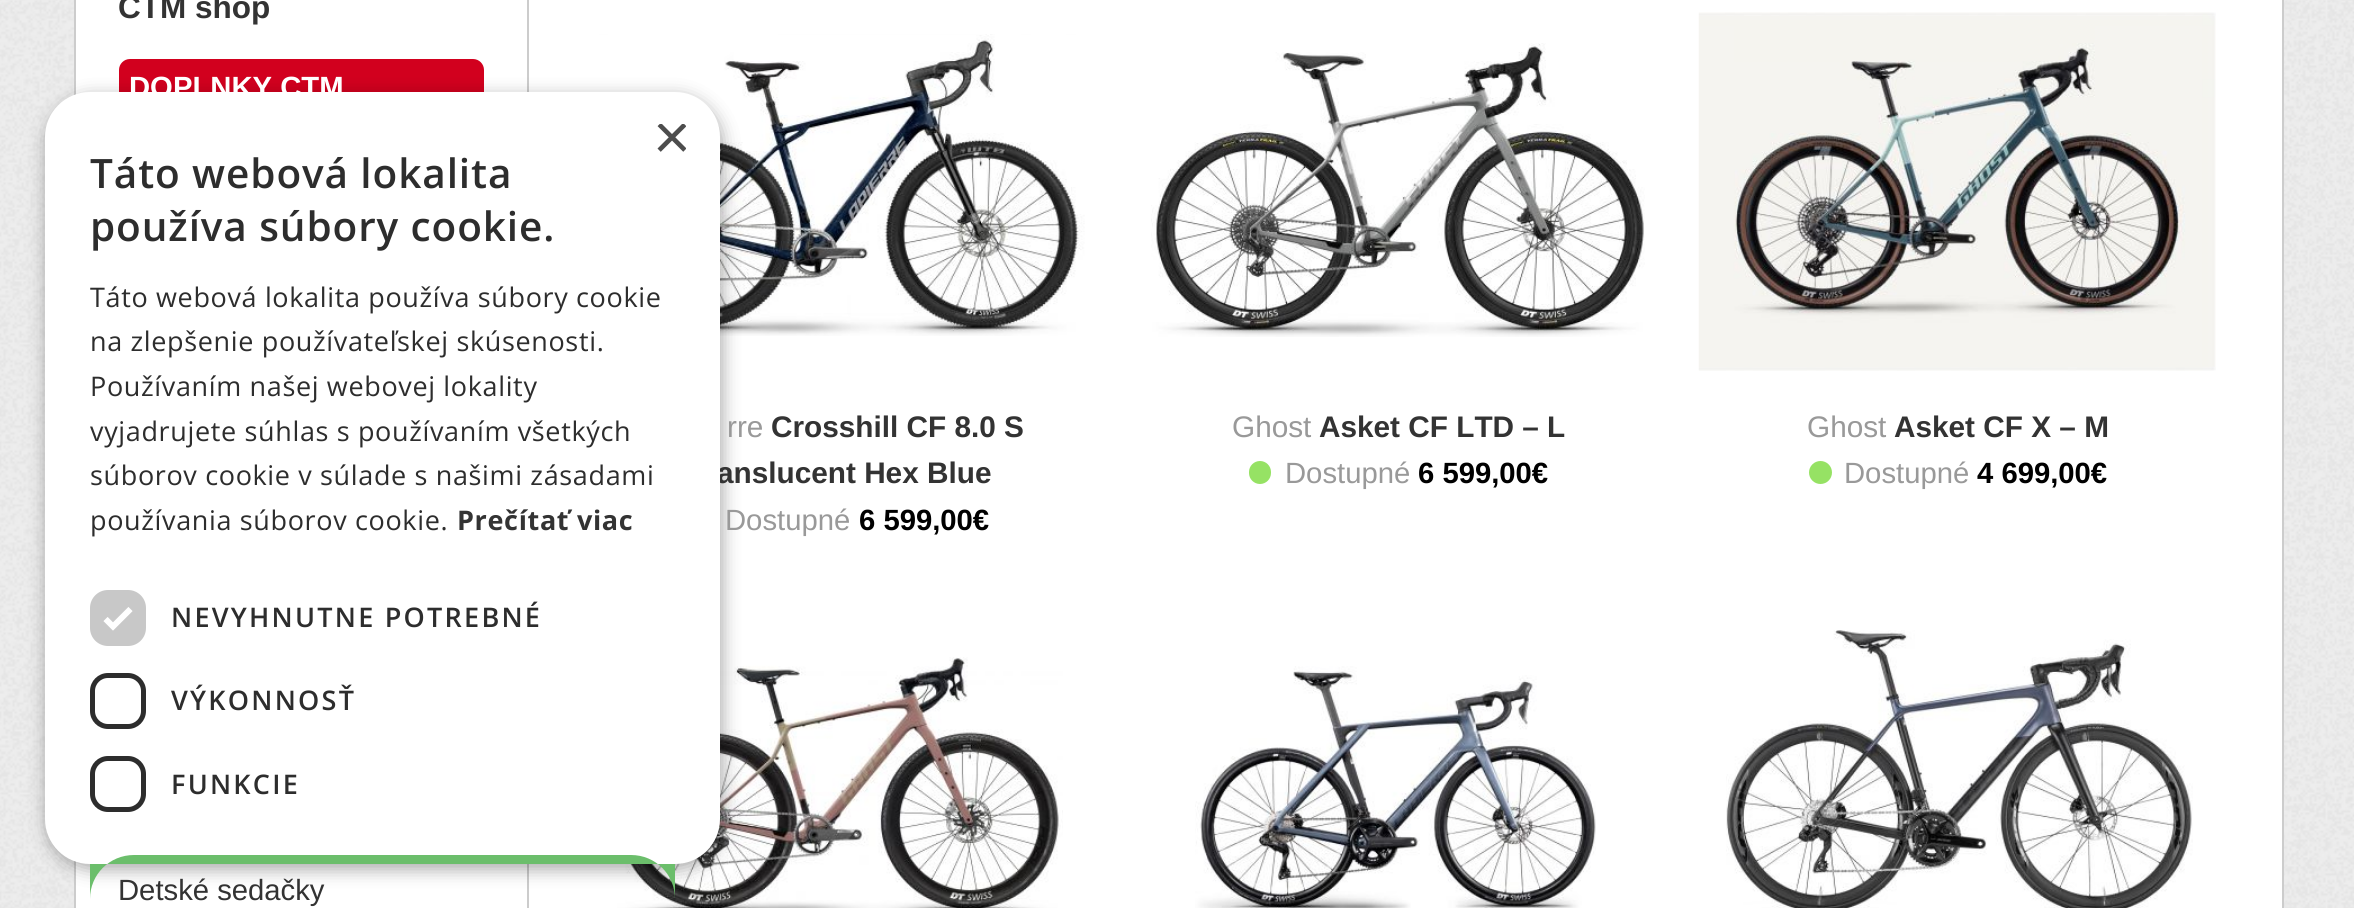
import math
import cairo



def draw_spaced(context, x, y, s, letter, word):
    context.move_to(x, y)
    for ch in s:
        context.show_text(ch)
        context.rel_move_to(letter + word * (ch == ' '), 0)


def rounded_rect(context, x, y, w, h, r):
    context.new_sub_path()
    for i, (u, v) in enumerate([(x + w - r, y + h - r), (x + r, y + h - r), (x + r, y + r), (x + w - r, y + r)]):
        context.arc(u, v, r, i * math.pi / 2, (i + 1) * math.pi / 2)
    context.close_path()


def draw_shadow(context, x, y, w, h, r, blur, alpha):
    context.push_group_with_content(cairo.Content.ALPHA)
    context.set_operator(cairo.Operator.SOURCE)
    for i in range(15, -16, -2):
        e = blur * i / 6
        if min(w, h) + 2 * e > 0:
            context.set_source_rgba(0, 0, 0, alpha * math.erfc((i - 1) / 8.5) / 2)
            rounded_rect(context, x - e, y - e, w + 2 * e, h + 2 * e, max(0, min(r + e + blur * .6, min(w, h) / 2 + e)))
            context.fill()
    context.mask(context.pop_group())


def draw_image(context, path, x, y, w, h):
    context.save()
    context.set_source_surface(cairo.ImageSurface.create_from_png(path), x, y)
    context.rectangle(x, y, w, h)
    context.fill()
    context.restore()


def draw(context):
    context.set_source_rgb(1, 1, 1)
    context.paint()
    draw_image(context, "images/1.png", 0, 0, 2354, 908)
    context.set_source_rgb(1, 1, 1)
    context.rectangle(75, -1, 2208, 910)
    context.fill_preserve()
    context.set_source_rgb(204 / 255, 204 / 255, 204 / 255)
    context.stroke()
    context.rectangle(527, 0, 2, 908)
    context.fill()
    context.set_source_rgb(210 / 255, 0, 30 / 255)
    rounded_rect(context, 119, 59, 365, 58, 11)
    context.fill()
    draw_image(context, "images/2.png", 599, 34, 486, 302)
    draw_image(context, "images/3.png", 1151, 43, 494, 294)
    context.set_source_rgb(150 / 255, 226 / 255, 100 / 255)
    rounded_rect(context, 1249, 461, 22, 23, 11)
    context.fill()
    draw_image(context, "images/4.png", 1698, 12, 518, 359)
    context.arc(1820.5, 472.5, 11.5, 0, 2 * math.pi)
    context.fill()
    draw_image(context, "images/5.png", 617, 657, 446, 251)
    draw_image(context, "images/6.png", 1195, 666, 401, 242)
    draw_image(context, "images/7.png", 1726, 630, 467, 278)
    context.set_source_rgb(0, 0, 0)
    draw_shadow(context, 47, 97, 675, 772, 45, 9, 0.35)
    context.select_font_face("Arimo", cairo.FontSlant.NORMAL, cairo.FontWeight.BOLD)
    context.set_font_size(31.5)
    context.set_source_rgb(51 / 255, 51 / 255, 51 / 255)
    context.move_to(118, 18)
    context.show_text("CTM shop")
    context.set_font_size(29.25)
    context.set_source_rgb(1, 1, 1)
    context.move_to(129, 97)
    context.show_text("DOPLNKY CTM")
    context.select_font_face("Arimo")
    context.set_source_rgb(51 / 255, 51 / 255, 51 / 255)
    context.move_to(118, 900)
    context.show_text("Detské sedačky")
    context.set_font_size(29.75)
    context.set_source_rgb(153 / 255, 153 / 255, 153 / 255)
    context.move_to(727, 437)
    context.show_text("rre")
    context.select_font_face("Arimo", cairo.FontSlant.NORMAL, cairo.FontWeight.BOLD)
    context.set_source_rgb(51 / 255, 51 / 255, 51 / 255)
    context.move_to(771, 437)
    context.show_text("Crosshill CF 8.0 S")
    context.move_to(717, 483)
    context.show_text("anslucent Hex Blue")
    context.select_font_face("Arimo")
    context.set_font_size(29.25)
    context.set_source_rgb(153 / 255, 153 / 255, 153 / 255)
    context.move_to(725, 530)
    context.show_text("Dostupné")
    context.select_font_face("Arimo", cairo.FontSlant.NORMAL, cairo.FontWeight.BOLD)
    context.set_source_rgb(0, 0, 0)
    context.move_to(859, 530)
    context.show_text("6 599,00€")
    context.select_font_face("Arimo")
    context.set_font_size(29.75)
    context.set_source_rgb(153 / 255, 153 / 255, 153 / 255)
    context.move_to(1232, 437)
    context.show_text("Ghost")
    context.select_font_face("Arimo", cairo.FontSlant.NORMAL, cairo.FontWeight.BOLD)
    context.set_source_rgb(51 / 255, 51 / 255, 51 / 255)
    context.move_to(1319, 437)
    context.show_text("Asket CF LTD – L")
    context.select_font_face("Arimo")
    context.set_font_size(29.25)
    context.set_source_rgb(153 / 255, 153 / 255, 153 / 255)
    context.move_to(1285, 483)
    context.show_text("Dostupné")
    context.select_font_face("Arimo", cairo.FontSlant.NORMAL, cairo.FontWeight.BOLD)
    context.set_source_rgb(0, 0, 0)
    context.move_to(1418, 483)
    context.show_text("6 599,00€")
    context.select_font_face("Arimo")
    context.set_font_size(29.75)
    context.set_source_rgb(153 / 255, 153 / 255, 153 / 255)
    context.move_to(1807, 437)
    context.show_text("Ghost")
    context.select_font_face("Arimo", cairo.FontSlant.NORMAL, cairo.FontWeight.BOLD)
    context.set_source_rgb(51 / 255, 51 / 255, 51 / 255)
    context.move_to(1894, 437)
    context.show_text("Asket CF X – M")
    context.select_font_face("Arimo")
    context.set_font_size(29.25)
    context.set_source_rgb(153 / 255, 153 / 255, 153 / 255)
    context.move_to(1844, 483)
    context.show_text("Dostupné")
    context.select_font_face("Arimo", cairo.FontSlant.NORMAL, cairo.FontWeight.BOLD)
    context.set_source_rgb(0, 0, 0)
    context.move_to(1977, 483)
    context.show_text("4 699,00€")
    context.set_source_rgb(1, 1, 1)
    rounded_rect(context, 45, 92, 675, 772, 45)
    context.fill()
    context.save()
    context.rectangle(653, 124, 33, 34)
    context.clip()
    context.select_font_face("Liberation Sans")
    context.set_font_size(65)
    context.set_source_rgb(77 / 255, 77 / 255, 77 / 255)
    context.move_to(653, 159)
    context.show_text("×")
    context.restore()
    context.select_font_face("Open Sans SemiBold")
    context.set_font_size(40.5)
    context.set_source_rgb(45 / 255, 45 / 255, 45 / 255)
    draw_spaced(context, 90, 188, "Táto webová lokalita", 0.9, 0)
    draw_spaced(context, 90, 241, "používa súbory cookie.", 0.9, 0)
    context.select_font_face("Open Sans")
    context.set_font_size(27)
    draw_spaced(context, 90, 307, "Táto webová lokalita používa súbory cookie", 0.65, 0)
    draw_spaced(context, 90, 351, "na zlepšenie používateľskej skúsenosti.", 0.65, 0)
    draw_spaced(context, 90, 396, "Používaním našej webovej lokality", 0.65, 0)
    draw_spaced(context, 90, 441, "vyjadrujete súhlas s používaním všetkých", 0.65, 0)
    draw_spaced(context, 90, 485, "súborov cookie v súlade s našimi zásadami", 0.65, 0)
    draw_spaced(context, 90, 530, "používania súborov cookie.", 0.65, 0)
    context.select_font_face("Open Sans", cairo.FontSlant.NORMAL, cairo.FontWeight.BOLD)
    context.set_source_rgb(51 / 255, 51 / 255, 51 / 255)
    draw_spaced(context, 457, 530, "Prečítať viac", 0.65, 0)
    context.set_source_rgb(200 / 255, 200 / 255, 200 / 255)
    rounded_rect(context, 90, 590, 56, 56, 18)
    context.fill()
    context.new_path()
    context.move_to(105.5, 619)
    context.line_to(113, 626.5)
    context.line_to(130.5, 609)
    context.set_source_rgb(1, 1, 1)
    context.set_line_width(5.9)
    context.stroke()
    context.select_font_face("Open Sans SemiBold")
    context.set_source_rgb(45 / 255, 45 / 255, 45 / 255)
    draw_spaced(context, 171, 627, "NEVYHNUTNE POTREBNÉ", 2.25, 0)
    rounded_rect(context, 92.5, 675.5, 51, 51, 15.5)
    context.set_line_width(5)
    context.stroke()
    draw_spaced(context, 171, 710, "VÝKONNOSŤ", 2.25, 0)
    rounded_rect(context, 92.5, 758.5, 51, 51, 15.5)
    context.stroke()
    draw_spaced(context, 171, 794, "FUNKCIE", 2.25, 0)
    context.set_source_rgb(107 / 255, 190 / 255, 107 / 255)
    context.new_path()
    context.move_to(134, 855)
    context.line_to(631, 855)
    context.curve_to(655.5, 855, 675, 874.5, 675, 899)
    context.line_to(675, 864)
    context.line_to(90, 864)
    context.line_to(90, 899)
    context.curve_to(90, 874.5, 109.5, 855, 134, 855)
    context.close_path()
    context.fill()


surface = cairo.ImageSurface(cairo.Format.RGB24, 2354, 908)
context = cairo.Context(surface)
options = cairo.FontOptions()
options.set_hint_metrics(cairo.HintMetrics.OFF)
options.set_hint_style(cairo.HintStyle.NONE)
context.set_font_options(options)
context.set_miter_limit(4)
draw(context)
surface.write_to_png("out.png")
